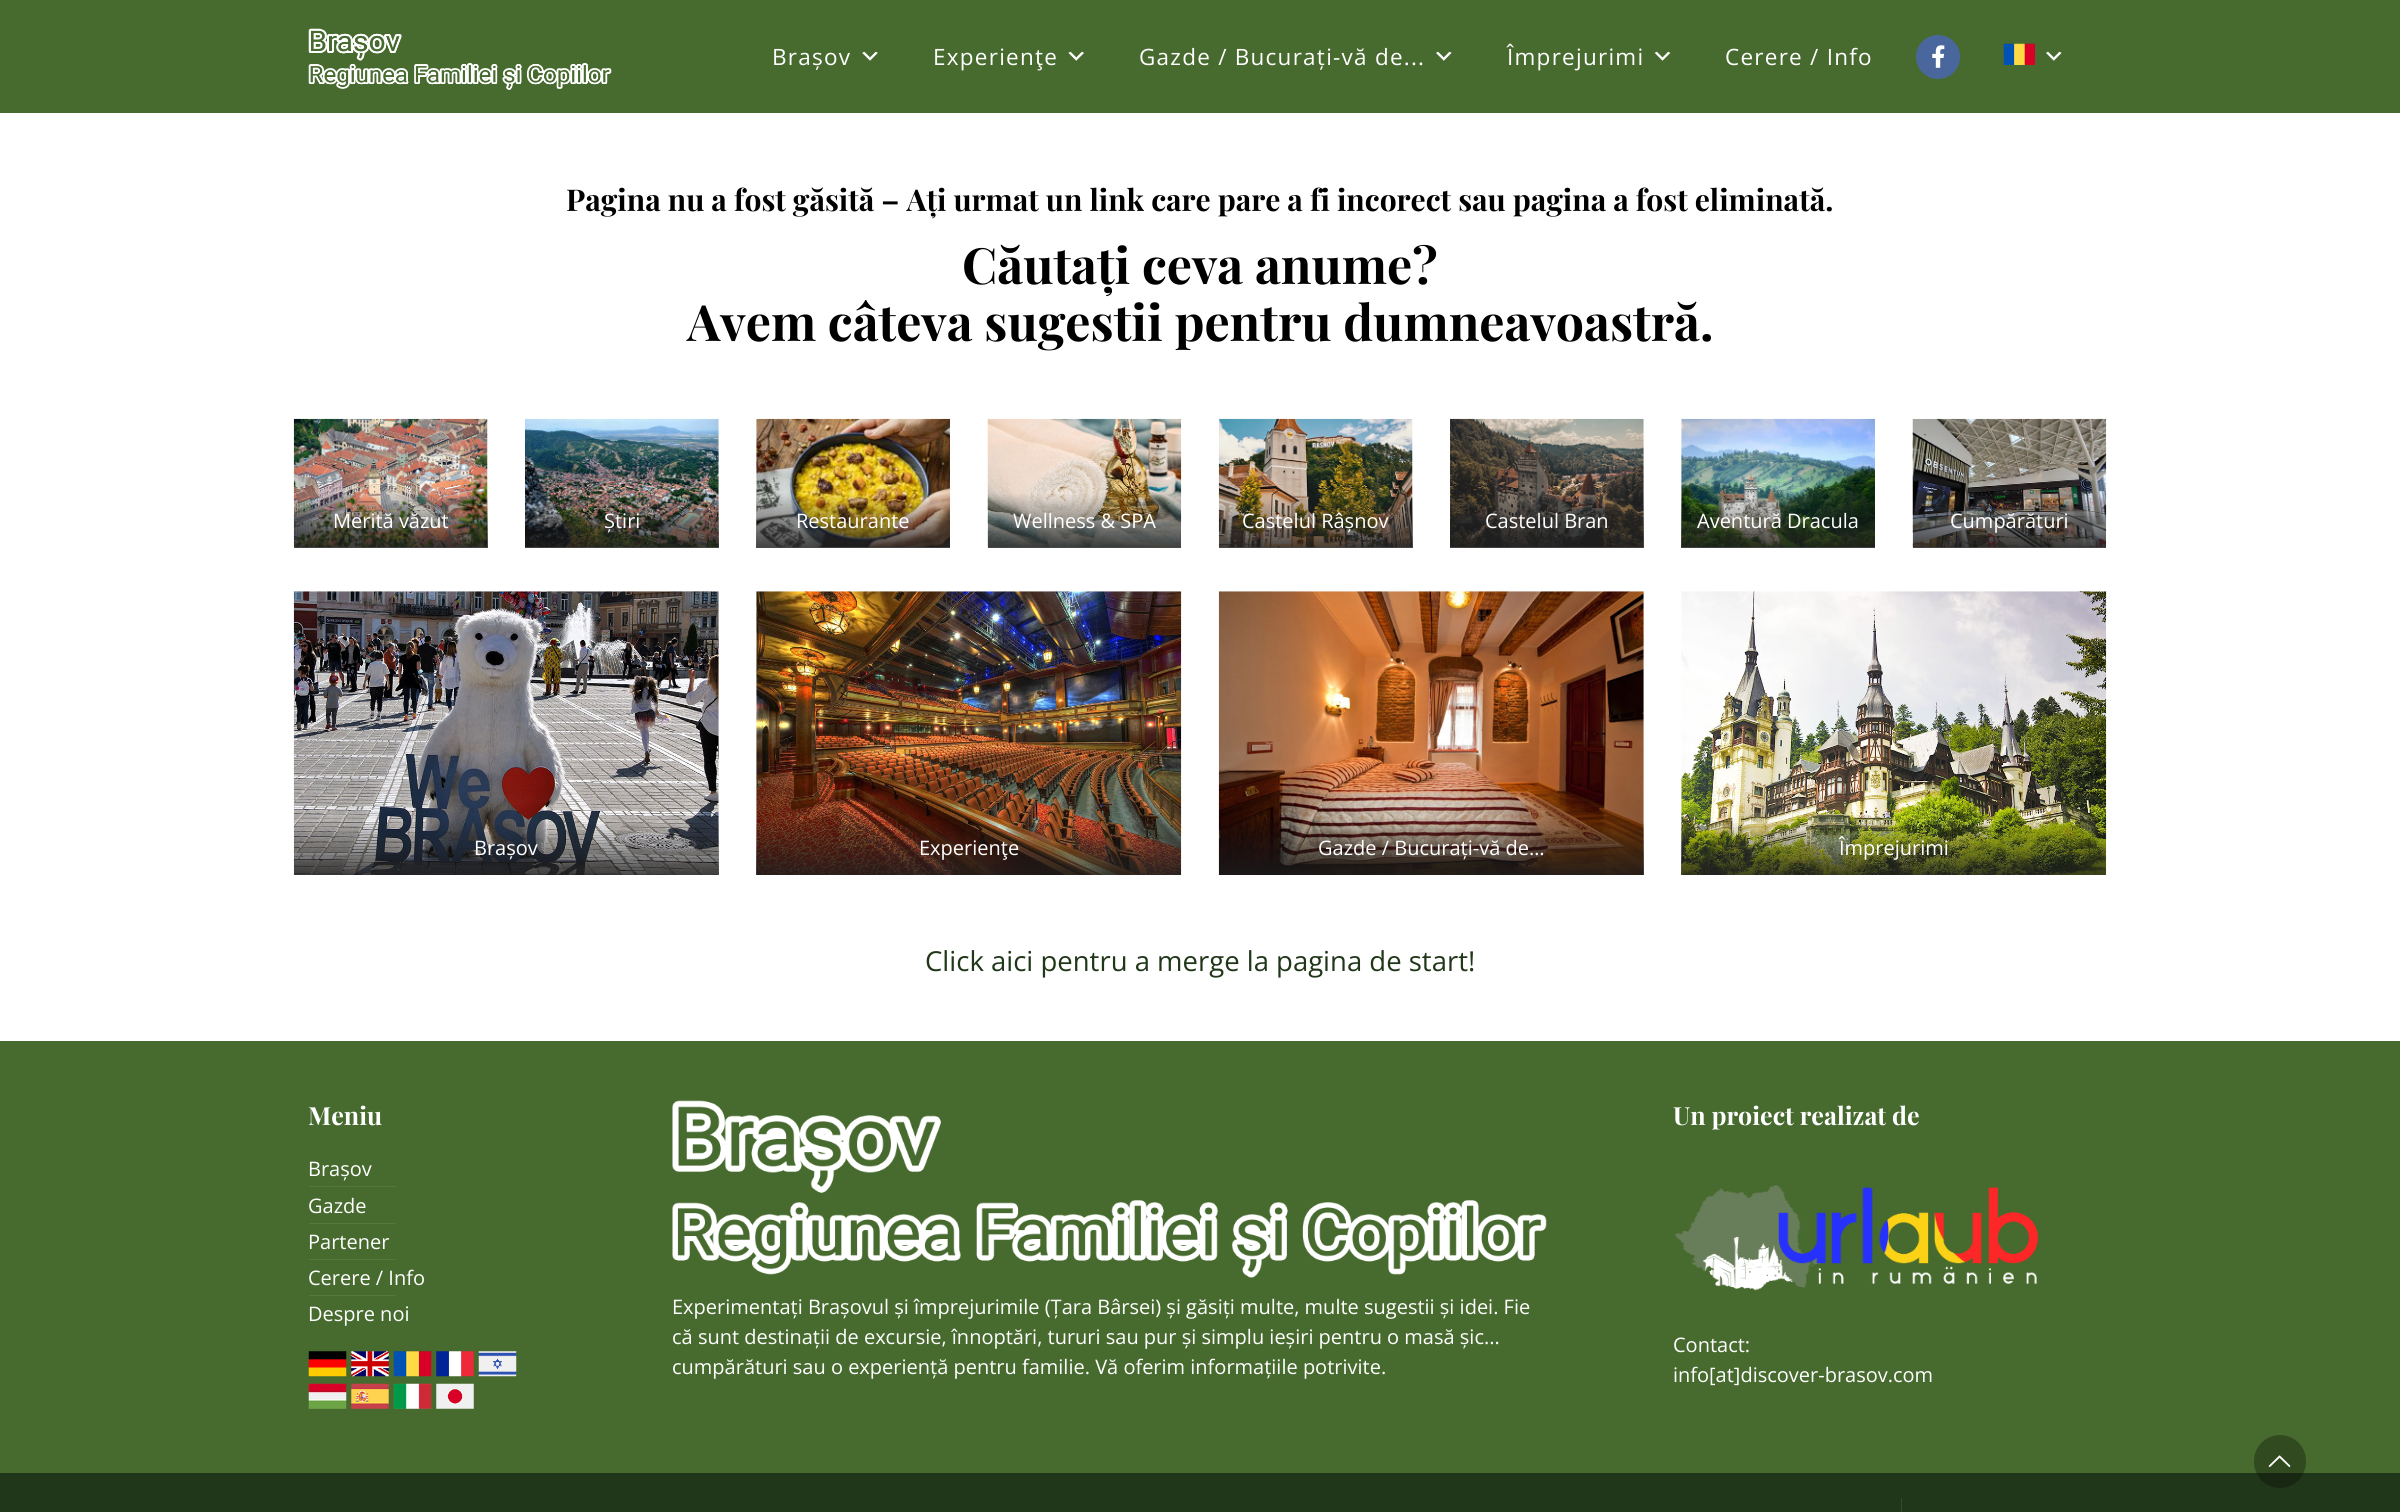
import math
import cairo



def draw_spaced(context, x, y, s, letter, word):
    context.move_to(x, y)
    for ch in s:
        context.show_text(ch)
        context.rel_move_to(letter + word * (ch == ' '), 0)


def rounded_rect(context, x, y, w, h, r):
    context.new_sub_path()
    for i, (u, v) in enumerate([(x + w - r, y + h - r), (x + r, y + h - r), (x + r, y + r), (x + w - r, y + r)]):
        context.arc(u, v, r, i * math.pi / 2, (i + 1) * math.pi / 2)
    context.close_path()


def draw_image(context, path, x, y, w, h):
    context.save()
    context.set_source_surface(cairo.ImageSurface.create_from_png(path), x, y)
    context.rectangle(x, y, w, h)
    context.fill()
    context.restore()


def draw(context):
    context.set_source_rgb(1, 1, 1)
    context.paint()
    context.set_source_rgb(71 / 255, 106 / 255, 46 / 255)
    context.rectangle(0, 0, 2400, 113)
    context.fill()
    draw_image(context, "images/1.png", 308, 28, 304, 62)
    draw_image(context, "images/2.png", 862, 51, 16, 10)
    draw_image(context, "images/3.png", 1068, 51, 16, 10)
    draw_image(context, "images/4.png", 1436, 51, 16, 10)
    draw_image(context, "images/5.png", 1654, 51, 17, 10)
    context.set_source_rgb(74 / 255, 103 / 255, 157 / 255)
    context.arc(1938, 57, 22, 0, 2 * math.pi)
    context.fill()
    draw_image(context, "images/6.png", 1932, 45, 13, 23)
    draw_image(context, "images/7.png", 2003, 43, 32, 22)
    draw_image(context, "images/4.png", 2046, 51, 16, 10)
    draw_image(context, "images/8.png", 293, 418, 195, 130)
    gradient = cairo.LinearGradient(391, 493, 391, 548)
    gradient.add_color_stop_rgba(0, 30 / 255, 30 / 255, 30 / 255, 0)
    gradient.add_color_stop_rgba(1, 30 / 255, 30 / 255, 30 / 255, 0.8)
    context.set_source(gradient)
    context.rectangle(294, 494, 194, 54)
    context.fill()
    draw_image(context, "images/9.png", 525, 418, 194, 130)
    gradient = cairo.LinearGradient(622, 493, 622, 548)
    gradient.add_color_stop_rgba(0, 30 / 255, 30 / 255, 30 / 255, 0)
    gradient.add_color_stop_rgba(1, 30 / 255, 30 / 255, 30 / 255, 0.8)
    context.set_source(gradient)
    context.rectangle(525, 494, 194, 54)
    context.fill()
    draw_image(context, "images/10.png", 756, 418, 194, 130)
    gradient = cairo.LinearGradient(853, 493, 853, 548)
    gradient.add_color_stop_rgba(0, 30 / 255, 30 / 255, 30 / 255, 0)
    gradient.add_color_stop_rgba(1, 30 / 255, 30 / 255, 30 / 255, 0.8)
    context.set_source(gradient)
    context.rectangle(756, 494, 194, 54)
    context.fill()
    draw_image(context, "images/11.png", 987, 418, 195, 130)
    gradient = cairo.LinearGradient(1084, 493, 1084, 548)
    gradient.add_color_stop_rgba(0, 30 / 255, 30 / 255, 30 / 255, 0)
    gradient.add_color_stop_rgba(1, 30 / 255, 30 / 255, 30 / 255, 0.8)
    context.set_source(gradient)
    context.rectangle(988, 494, 193, 54)
    context.fill()
    draw_image(context, "images/12.png", 1218, 418, 195, 130)
    gradient = cairo.LinearGradient(1316, 493, 1316, 548)
    gradient.add_color_stop_rgba(0, 30 / 255, 30 / 255, 30 / 255, 0)
    gradient.add_color_stop_rgba(1, 30 / 255, 30 / 255, 30 / 255, 0.8)
    context.set_source(gradient)
    context.rectangle(1219, 494, 194, 54)
    context.fill()
    draw_image(context, "images/13.png", 1450, 418, 194, 130)
    gradient = cairo.LinearGradient(1547, 493, 1547, 548)
    gradient.add_color_stop_rgba(0, 30 / 255, 30 / 255, 30 / 255, 0)
    gradient.add_color_stop_rgba(1, 30 / 255, 30 / 255, 30 / 255, 0.8)
    context.set_source(gradient)
    context.rectangle(1450, 494, 194, 54)
    context.fill()
    draw_image(context, "images/14.png", 1681, 418, 194, 130)
    gradient = cairo.LinearGradient(1778, 493, 1778, 548)
    gradient.add_color_stop_rgba(0, 30 / 255, 30 / 255, 30 / 255, 0)
    gradient.add_color_stop_rgba(1, 30 / 255, 30 / 255, 30 / 255, 0.8)
    context.set_source(gradient)
    context.rectangle(1681, 494, 194, 54)
    context.fill()
    draw_image(context, "images/15.png", 1912, 418, 195, 130)
    gradient = cairo.LinearGradient(2009, 493, 2009, 548)
    gradient.add_color_stop_rgba(0, 30 / 255, 30 / 255, 30 / 255, 0)
    gradient.add_color_stop_rgba(1, 30 / 255, 30 / 255, 30 / 255, 0.8)
    context.set_source(gradient)
    context.rectangle(1913, 494, 193, 54)
    context.fill()
    draw_image(context, "images/16.png", 293, 591, 426, 284)
    gradient = cairo.LinearGradient(506, 820, 506, 875)
    gradient.add_color_stop_rgba(0, 30 / 255, 30 / 255, 30 / 255, 0)
    gradient.add_color_stop_rgba(1, 30 / 255, 30 / 255, 30 / 255, 0.8)
    context.set_source(gradient)
    context.rectangle(294, 821, 425, 54)
    context.fill()
    draw_image(context, "images/17.png", 756, 591, 426, 284)
    gradient = cairo.LinearGradient(969, 820, 969, 875)
    gradient.add_color_stop_rgba(0, 30 / 255, 30 / 255, 30 / 255, 0)
    gradient.add_color_stop_rgba(1, 30 / 255, 30 / 255, 30 / 255, 0.8)
    context.set_source(gradient)
    context.rectangle(756, 821, 425, 54)
    context.fill()
    draw_image(context, "images/18.png", 1218, 591, 426, 284)
    gradient = cairo.LinearGradient(1431, 820, 1431, 875)
    gradient.add_color_stop_rgba(0, 30 / 255, 30 / 255, 30 / 255, 0)
    gradient.add_color_stop_rgba(1, 30 / 255, 30 / 255, 30 / 255, 0.8)
    context.set_source(gradient)
    context.rectangle(1219, 821, 425, 54)
    context.fill()
    draw_image(context, "images/19.png", 1681, 591, 426, 284)
    gradient = cairo.LinearGradient(1894, 820, 1894, 875)
    gradient.add_color_stop_rgba(0, 30 / 255, 30 / 255, 30 / 255, 0)
    gradient.add_color_stop_rgba(1, 30 / 255, 30 / 255, 30 / 255, 0.8)
    context.set_source(gradient)
    context.rectangle(1681, 821, 425, 54)
    context.fill()
    context.set_source_rgb(71 / 255, 106 / 255, 46 / 255)
    context.rectangle(0, 1041, 2400, 432)
    context.fill()
    context.set_source_rgb(86 / 255, 118 / 255, 63 / 255)
    context.rectangle(309, 1186, 87, 1)
    context.fill()
    context.rectangle(309, 1223, 87, 1)
    context.fill()
    context.rectangle(309, 1259, 87, 1)
    context.fill()
    context.rectangle(309, 1295, 87, 1)
    context.fill()
    draw_image(context, "images/20.png", 308, 1351, 39, 26)
    draw_image(context, "images/21.png", 351, 1351, 38, 26)
    draw_image(context, "images/22.png", 393, 1351, 39, 26)
    draw_image(context, "images/23.png", 436, 1351, 38, 26)
    draw_image(context, "images/24.png", 478, 1351, 39, 26)
    draw_image(context, "images/25.png", 308, 1383, 39, 26)
    draw_image(context, "images/26.png", 351, 1383, 38, 26)
    draw_image(context, "images/27.png", 393, 1383, 39, 26)
    draw_image(context, "images/28.png", 436, 1383, 38, 26)
    draw_image(context, "images/29.png", 672, 1100, 875, 178)
    draw_image(context, "images/30.png", 1675, 1185, 363, 106)
    context.set_source_rgb(33 / 255, 55 / 255, 25 / 255)
    context.rectangle(0, 1473, 2400, 39)
    context.fill()
    context.set_source_rgb(55 / 255, 75 / 255, 48 / 255)
    context.rectangle(1901, 1498, 1, 14)
    context.fill()
    context.set_source_rgba(0, 0, 0, 0.3)
    rounded_rect(context, 2254, 1435, 52, 53, 26)
    context.fill()
    draw_image(context, "images/31.png", 2268, 1455, 23, 12)
    context.select_font_face("Open Sans")
    context.set_font_size(22.5)
    context.set_source_rgb(1, 1, 1)
    draw_spaced(context, 772, 65, "Brașov", 1.25, 0)
    draw_spaced(context, 933, 65, "Experienţe", 1.25, 0)
    draw_spaced(context, 1139, 65, "Gazde / Bucurați-vă de...", 1.25, 0)
    draw_spaced(context, 1507, 65, "Împrejurimi", 1.25, 0)
    draw_spaced(context, 1725, 65, "Cerere / Info", 1.25, 0)
    context.select_font_face("Playfair Display", cairo.FontSlant.NORMAL, cairo.FontWeight.BOLD)
    context.set_font_size(30)
    context.set_source_rgb(0, 0, 0)
    context.move_to(566, 211)
    context.show_text("Pagina nu a fost găsită – Ați urmat un link care pare a fi incorect sau pagina a fost eliminată.")
    context.set_font_size(50)
    context.move_to(962, 284)
    context.show_text("Căutați ceva anume?")
    context.move_to(687, 341)
    context.show_text("Avem câteva sugestii pentru dumneavoastră.")
    context.select_font_face("Open Sans")
    context.set_font_size(20)
    context.set_source_rgb(1, 1, 1)
    context.move_to(333, 528)
    context.show_text("Merită văzut")
    context.move_to(604, 528)
    context.show_text("Știri")
    context.move_to(796, 528)
    context.show_text("Restaurante")
    context.move_to(1013, 528)
    context.show_text("Wellness & SPA")
    context.move_to(1242, 528)
    context.show_text("Castelul Râșnov")
    context.move_to(1485, 528)
    context.show_text("Castelul Bran")
    context.move_to(1697, 528)
    context.show_text("Aventură Dracula")
    context.move_to(1950, 528)
    context.show_text("Cumpărături")
    context.move_to(474, 855)
    context.show_text("Brașov")
    context.move_to(919, 855)
    context.show_text("Experienţe")
    context.move_to(1318, 855)
    context.show_text("Gazde / Bucurați-vă de…")
    context.move_to(1839, 855)
    context.show_text("Împrejurimi")
    context.set_font_size(27.5)
    context.set_source_rgb(33 / 255, 55 / 255, 25 / 255)
    context.move_to(925, 971)
    context.show_text("Click aici pentru a merge la pagina de start!")
    context.select_font_face("Playfair Display", cairo.FontSlant.NORMAL, cairo.FontWeight.BOLD)
    context.set_font_size(25)
    context.set_source_rgb(1, 1, 1)
    context.move_to(308, 1125)
    context.show_text("Meniu")
    context.select_font_face("Open Sans")
    context.set_font_size(20)
    context.move_to(308, 1176)
    context.show_text("Brașov")
    context.move_to(308, 1213)
    context.show_text("Gazde")
    context.move_to(308, 1249)
    context.show_text("Partener")
    context.move_to(308, 1285)
    context.show_text("Cerere / Info")
    context.move_to(308, 1321)
    context.show_text("Despre noi")
    context.move_to(672, 1314)
    context.show_text("Experimentați Brașovul și împrejurimile (Țara Bârsei) și găsiți multe, multe sugestii și idei. Fie")
    context.move_to(672, 1344)
    context.show_text("că sunt destinații de excursie, înnoptări, tururi sau pur și simplu ieșiri pentru o masă șic...")
    context.move_to(672, 1374)
    context.show_text("cumpărături sau o experiență pentru familie. Vă oferim informațiile potrivite.")
    context.select_font_face("Playfair Display", cairo.FontSlant.NORMAL, cairo.FontWeight.BOLD)
    context.set_font_size(25)
    context.move_to(1673, 1125)
    context.show_text("Un proiect realizat de")
    context.select_font_face("Open Sans")
    context.set_font_size(20)
    context.move_to(1673, 1352)
    context.show_text("Contact:")
    context.move_to(1673, 1382)
    context.show_text("info[at]discover-brasov.com")


surface = cairo.ImageSurface(cairo.Format.RGB24, 2400, 1512)
context = cairo.Context(surface)
options = cairo.FontOptions()
options.set_hint_metrics(cairo.HintMetrics.OFF)
options.set_hint_style(cairo.HintStyle.NONE)
context.set_font_options(options)
context.set_miter_limit(4)
draw(context)
surface.write_to_png("out.png")
